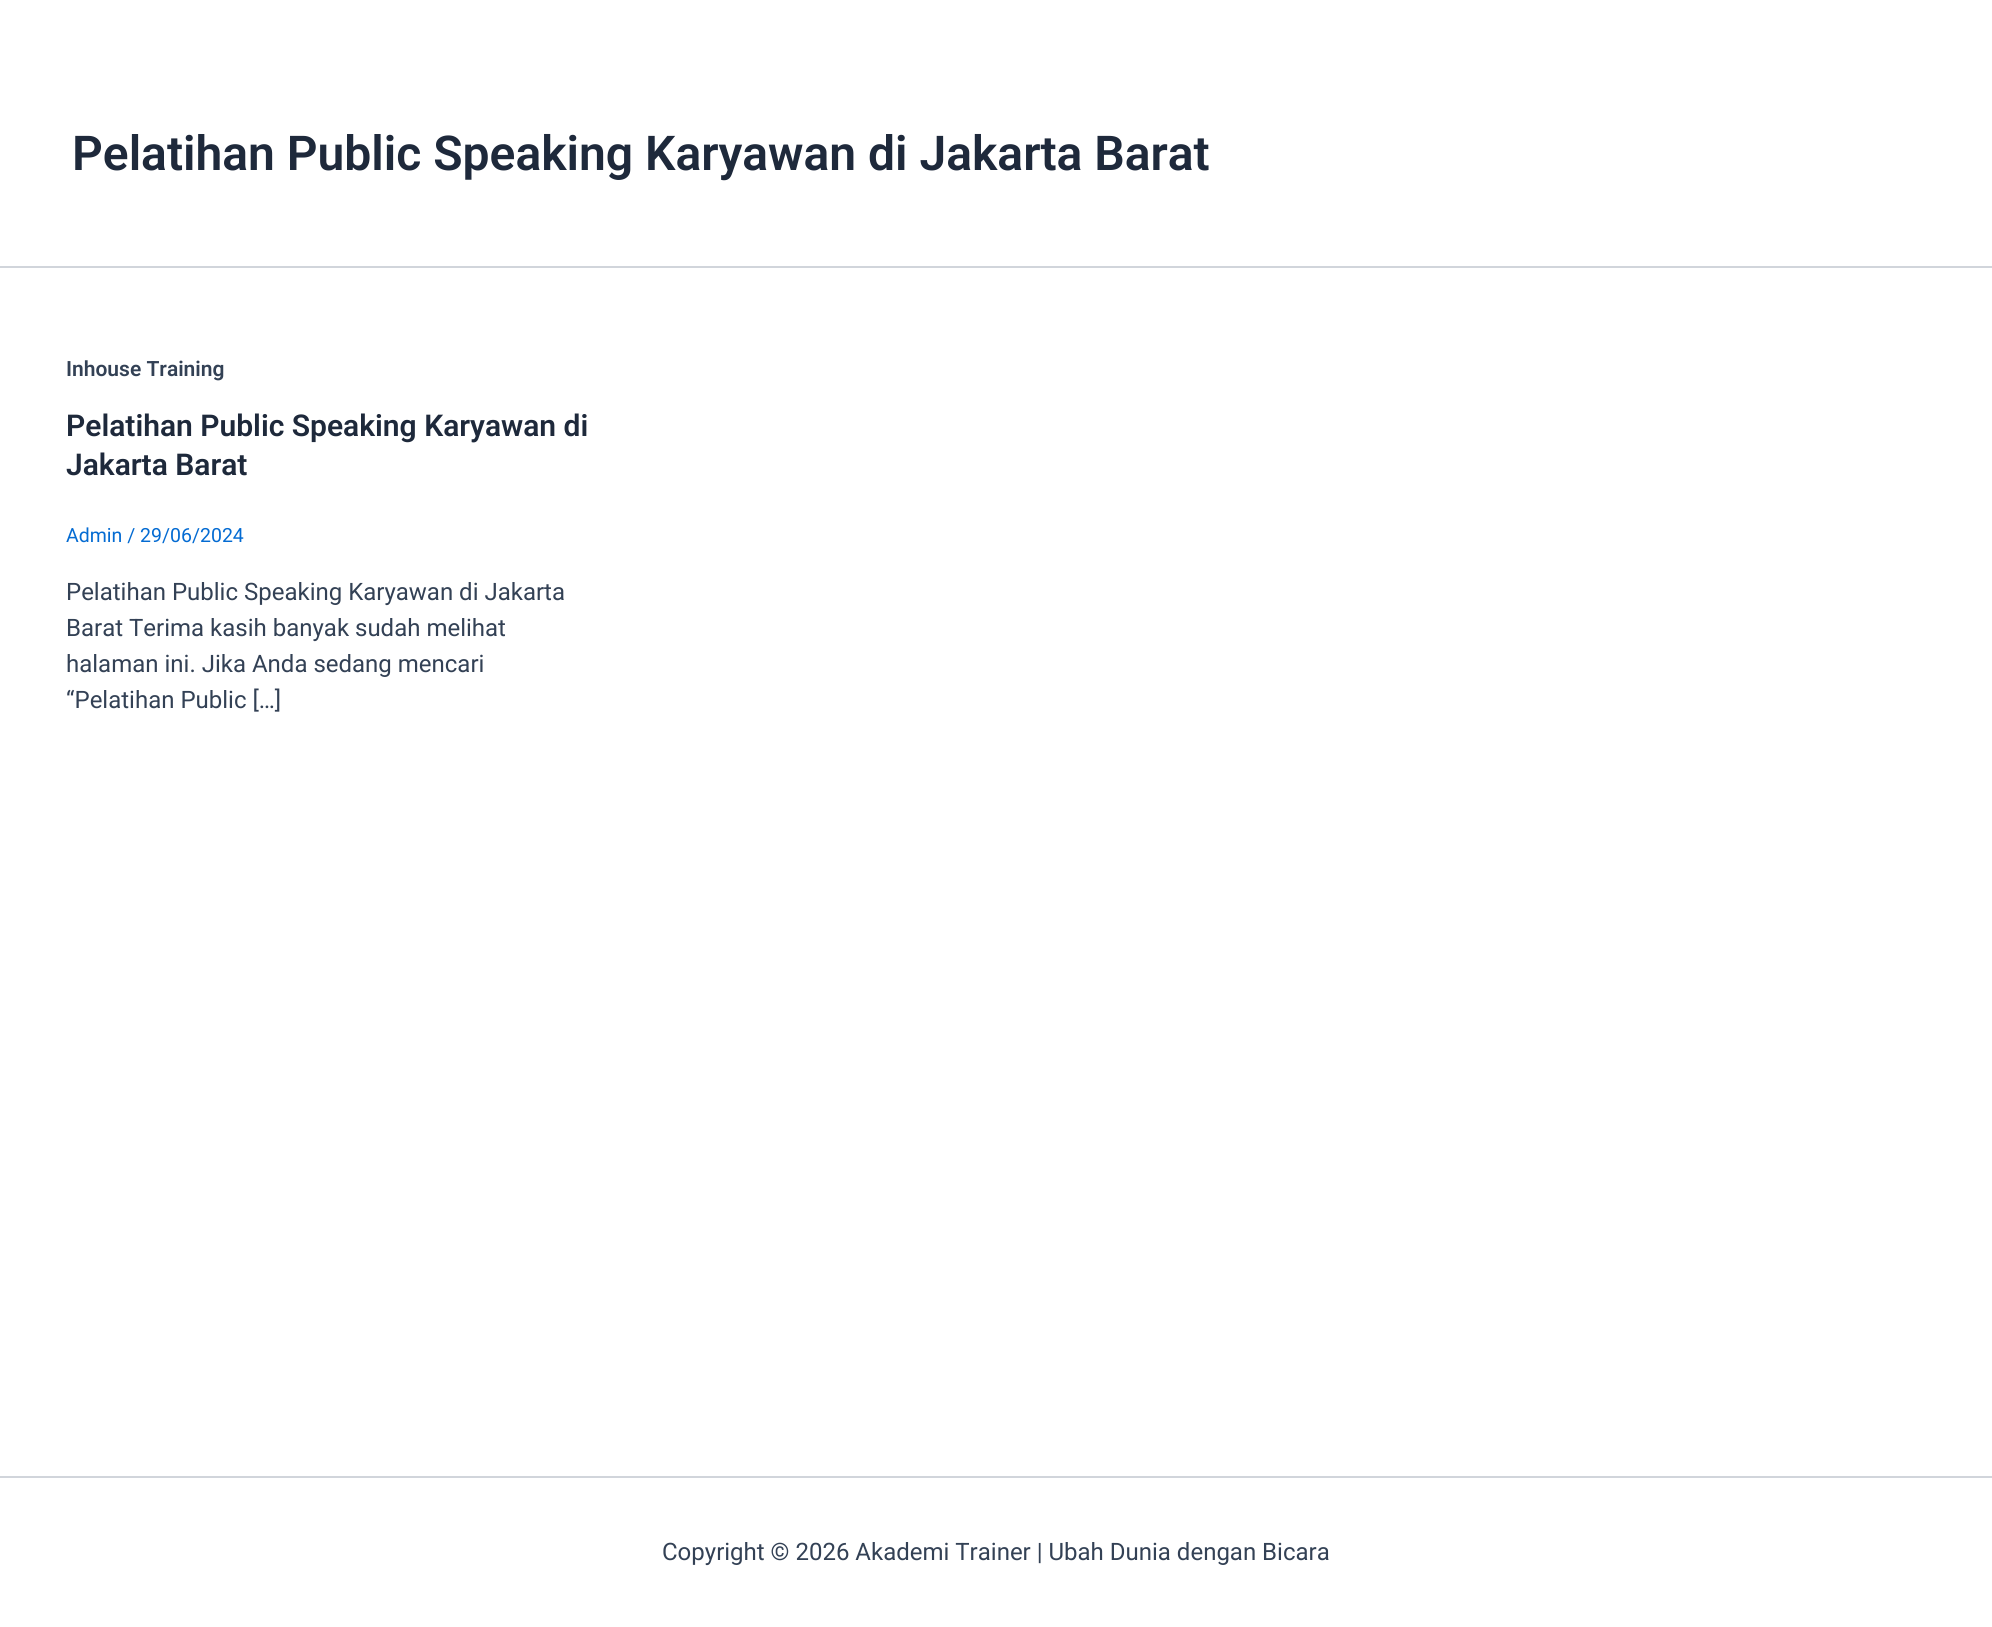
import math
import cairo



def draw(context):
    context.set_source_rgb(1, 1, 1)
    context.paint()
    context.set_source_rgb(209 / 255, 213 / 255, 219 / 255)
    context.rectangle(0, 266, 1992, 2)
    context.fill()
    context.rectangle(0, 1476, 1992, 2)
    context.fill()
    context.select_font_face("Roboto SemiBold")
    context.set_font_size(48)
    context.set_source_rgb(30 / 255, 41 / 255, 59 / 255)
    context.move_to(72, 170)
    context.show_text("Pelatihan Public Speaking Karyawan di Jakarta Barat")
    context.set_font_size(21)
    context.set_source_rgb(51 / 255, 65 / 255, 85 / 255)
    context.move_to(66, 376)
    context.show_text("Inhouse Training")
    context.set_font_size(30)
    context.set_source_rgb(30 / 255, 41 / 255, 59 / 255)
    context.move_to(66, 436)
    context.show_text("Pelatihan Public Speaking Karyawan di")
    context.move_to(66, 475)
    context.show_text("Jakarta Barat")
    context.select_font_face("Roboto")
    context.set_font_size(19.5)
    context.set_source_rgb(4 / 255, 107 / 255, 210 / 255)
    context.move_to(66, 542)
    context.show_text("Admin / 29/06/2024")
    context.set_font_size(24)
    context.set_source_rgb(51 / 255, 65 / 255, 85 / 255)
    context.move_to(66, 600)
    context.show_text("Pelatihan Public Speaking Karyawan di Jakarta")
    context.move_to(66, 636)
    context.show_text("Barat Terima kasih banyak sudah melihat")
    context.move_to(66, 672)
    context.show_text("halaman ini. Jika Anda sedang mencari")
    context.move_to(66, 708)
    context.show_text("“Pelatihan Public […]")
    context.move_to(662, 1560)
    context.show_text("Copyright © 2026 Akademi Trainer | Ubah Dunia dengan Bicara")


surface = cairo.ImageSurface(cairo.Format.RGB24, 1992, 1627)
context = cairo.Context(surface)
options = cairo.FontOptions()
options.set_hint_metrics(cairo.HintMetrics.OFF)
options.set_hint_style(cairo.HintStyle.NONE)
context.set_font_options(options)
context.set_miter_limit(4)
draw(context)
surface.write_to_png("out.png")
